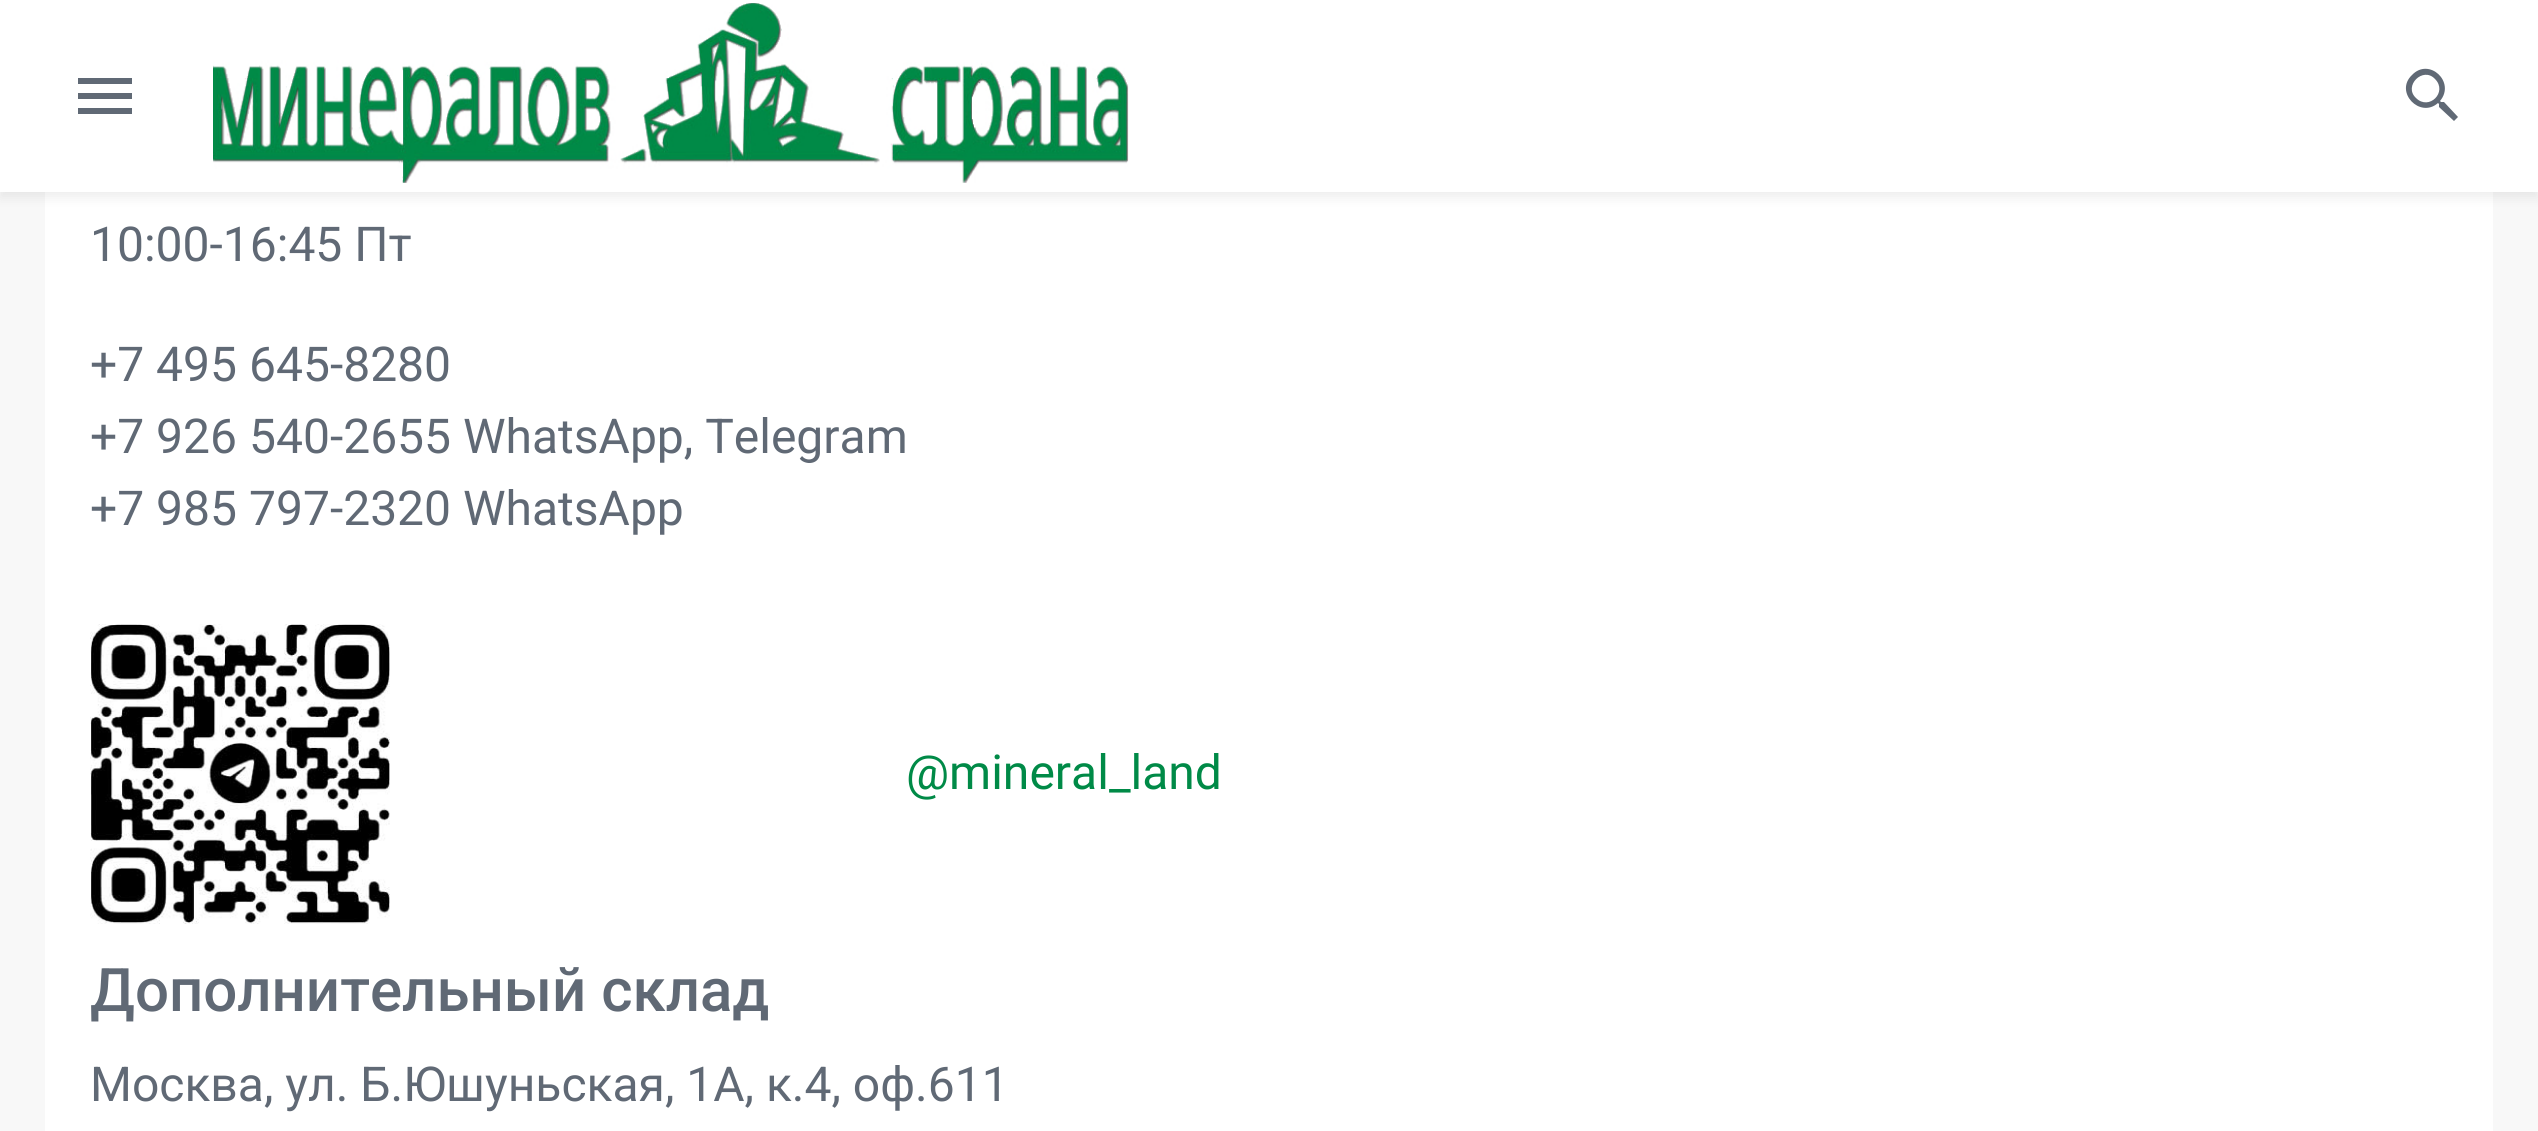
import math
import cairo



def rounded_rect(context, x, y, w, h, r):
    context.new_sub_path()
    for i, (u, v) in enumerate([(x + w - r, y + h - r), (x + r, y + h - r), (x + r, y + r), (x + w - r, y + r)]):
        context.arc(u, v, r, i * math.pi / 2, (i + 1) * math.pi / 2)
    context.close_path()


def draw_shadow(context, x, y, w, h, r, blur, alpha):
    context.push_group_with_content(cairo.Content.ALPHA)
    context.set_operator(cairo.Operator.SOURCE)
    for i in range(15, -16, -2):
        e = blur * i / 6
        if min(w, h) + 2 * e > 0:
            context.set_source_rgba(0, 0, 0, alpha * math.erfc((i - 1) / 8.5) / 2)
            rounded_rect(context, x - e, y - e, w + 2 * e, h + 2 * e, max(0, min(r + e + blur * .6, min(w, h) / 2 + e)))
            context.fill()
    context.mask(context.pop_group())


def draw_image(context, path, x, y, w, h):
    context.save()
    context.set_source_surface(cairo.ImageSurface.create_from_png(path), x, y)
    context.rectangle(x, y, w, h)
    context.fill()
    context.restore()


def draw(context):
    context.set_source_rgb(248 / 255, 248 / 255, 248 / 255)
    context.paint()
    context.set_source_rgb(1, 1, 1)
    context.rectangle(45, 192, 2448, 939)
    context.fill()
    context.set_source_rgb(0, 0, 0)
    draw_shadow(context, 0, 6, 2538, 192, 0, 6, 0.07)
    context.set_source_rgb(1, 1, 1)
    context.rectangle(0, 0, 2538, 192)
    context.fill()
    context.set_source_rgb(96 / 255, 105 / 255, 117 / 255)
    context.new_path()
    context.move_to(78, 78)
    context.line_to(132, 78)
    context.line_to(132, 84)
    context.line_to(78, 84)
    context.close_path()
    context.move_to(78, 99)
    context.line_to(78, 93)
    context.line_to(132, 93)
    context.line_to(132, 99)
    context.close_path()
    context.move_to(78, 114)
    context.line_to(78, 108)
    context.line_to(132, 108)
    context.line_to(132, 114)
    context.close_path()
    context.fill()
    draw_image(context, "images/1.png", 213, 3, 916, 180)
    context.new_path()
    context.move_to(2416, 98)
    context.curve_to(2429, 111, 2448, 92, 2435, 79)
    context.curve_to(2423, 66, 2403, 86, 2416, 98)
    context.close_path()
    context.move_to(2444, 102)
    context.line_to(2458, 117)
    context.line_to(2454, 121)
    context.line_to(2439, 107)
    context.line_to(2439, 104)
    context.line_to(2438, 103)
    context.curve_to(2420, 119, 2394, 92, 2412, 75)
    context.curve_to(2429, 57, 2456, 82, 2440, 101)
    context.line_to(2441, 102)
    context.close_path()
    context.fill()
    draw_image(context, "images/2.png", 90, 624, 300, 300)
    context.select_font_face("Roboto")
    context.set_font_size(48)
    context.move_to(90, 261)
    context.show_text("10:00-16:45 Пт")
    context.move_to(90, 381)
    context.show_text("+7 495 645-8280")
    context.move_to(90, 453)
    context.show_text("+7 926 540-2655 WhatsApp, Telegram")
    context.move_to(90, 525)
    context.show_text("+7 985 797-2320 WhatsApp")
    context.set_source_rgb(0, 138 / 255, 71 / 255)
    context.move_to(906, 789)
    context.show_text("@mineral_land")
    context.select_font_face("Roboto Medium")
    context.set_font_size(60)
    context.set_source_rgb(96 / 255, 105 / 255, 117 / 255)
    context.move_to(90, 1011)
    context.show_text("Дополнительный склад")
    context.select_font_face("Roboto")
    context.set_font_size(48)
    context.move_to(90, 1101)
    context.show_text("Москва, ул. Б.Юшуньская, 1А, к.4, оф.611")


surface = cairo.ImageSurface(cairo.Format.RGB24, 2538, 1131)
context = cairo.Context(surface)
options = cairo.FontOptions()
options.set_hint_metrics(cairo.HintMetrics.OFF)
options.set_hint_style(cairo.HintStyle.NONE)
context.set_font_options(options)
context.set_miter_limit(4)
draw(context)
surface.write_to_png("out.png")
